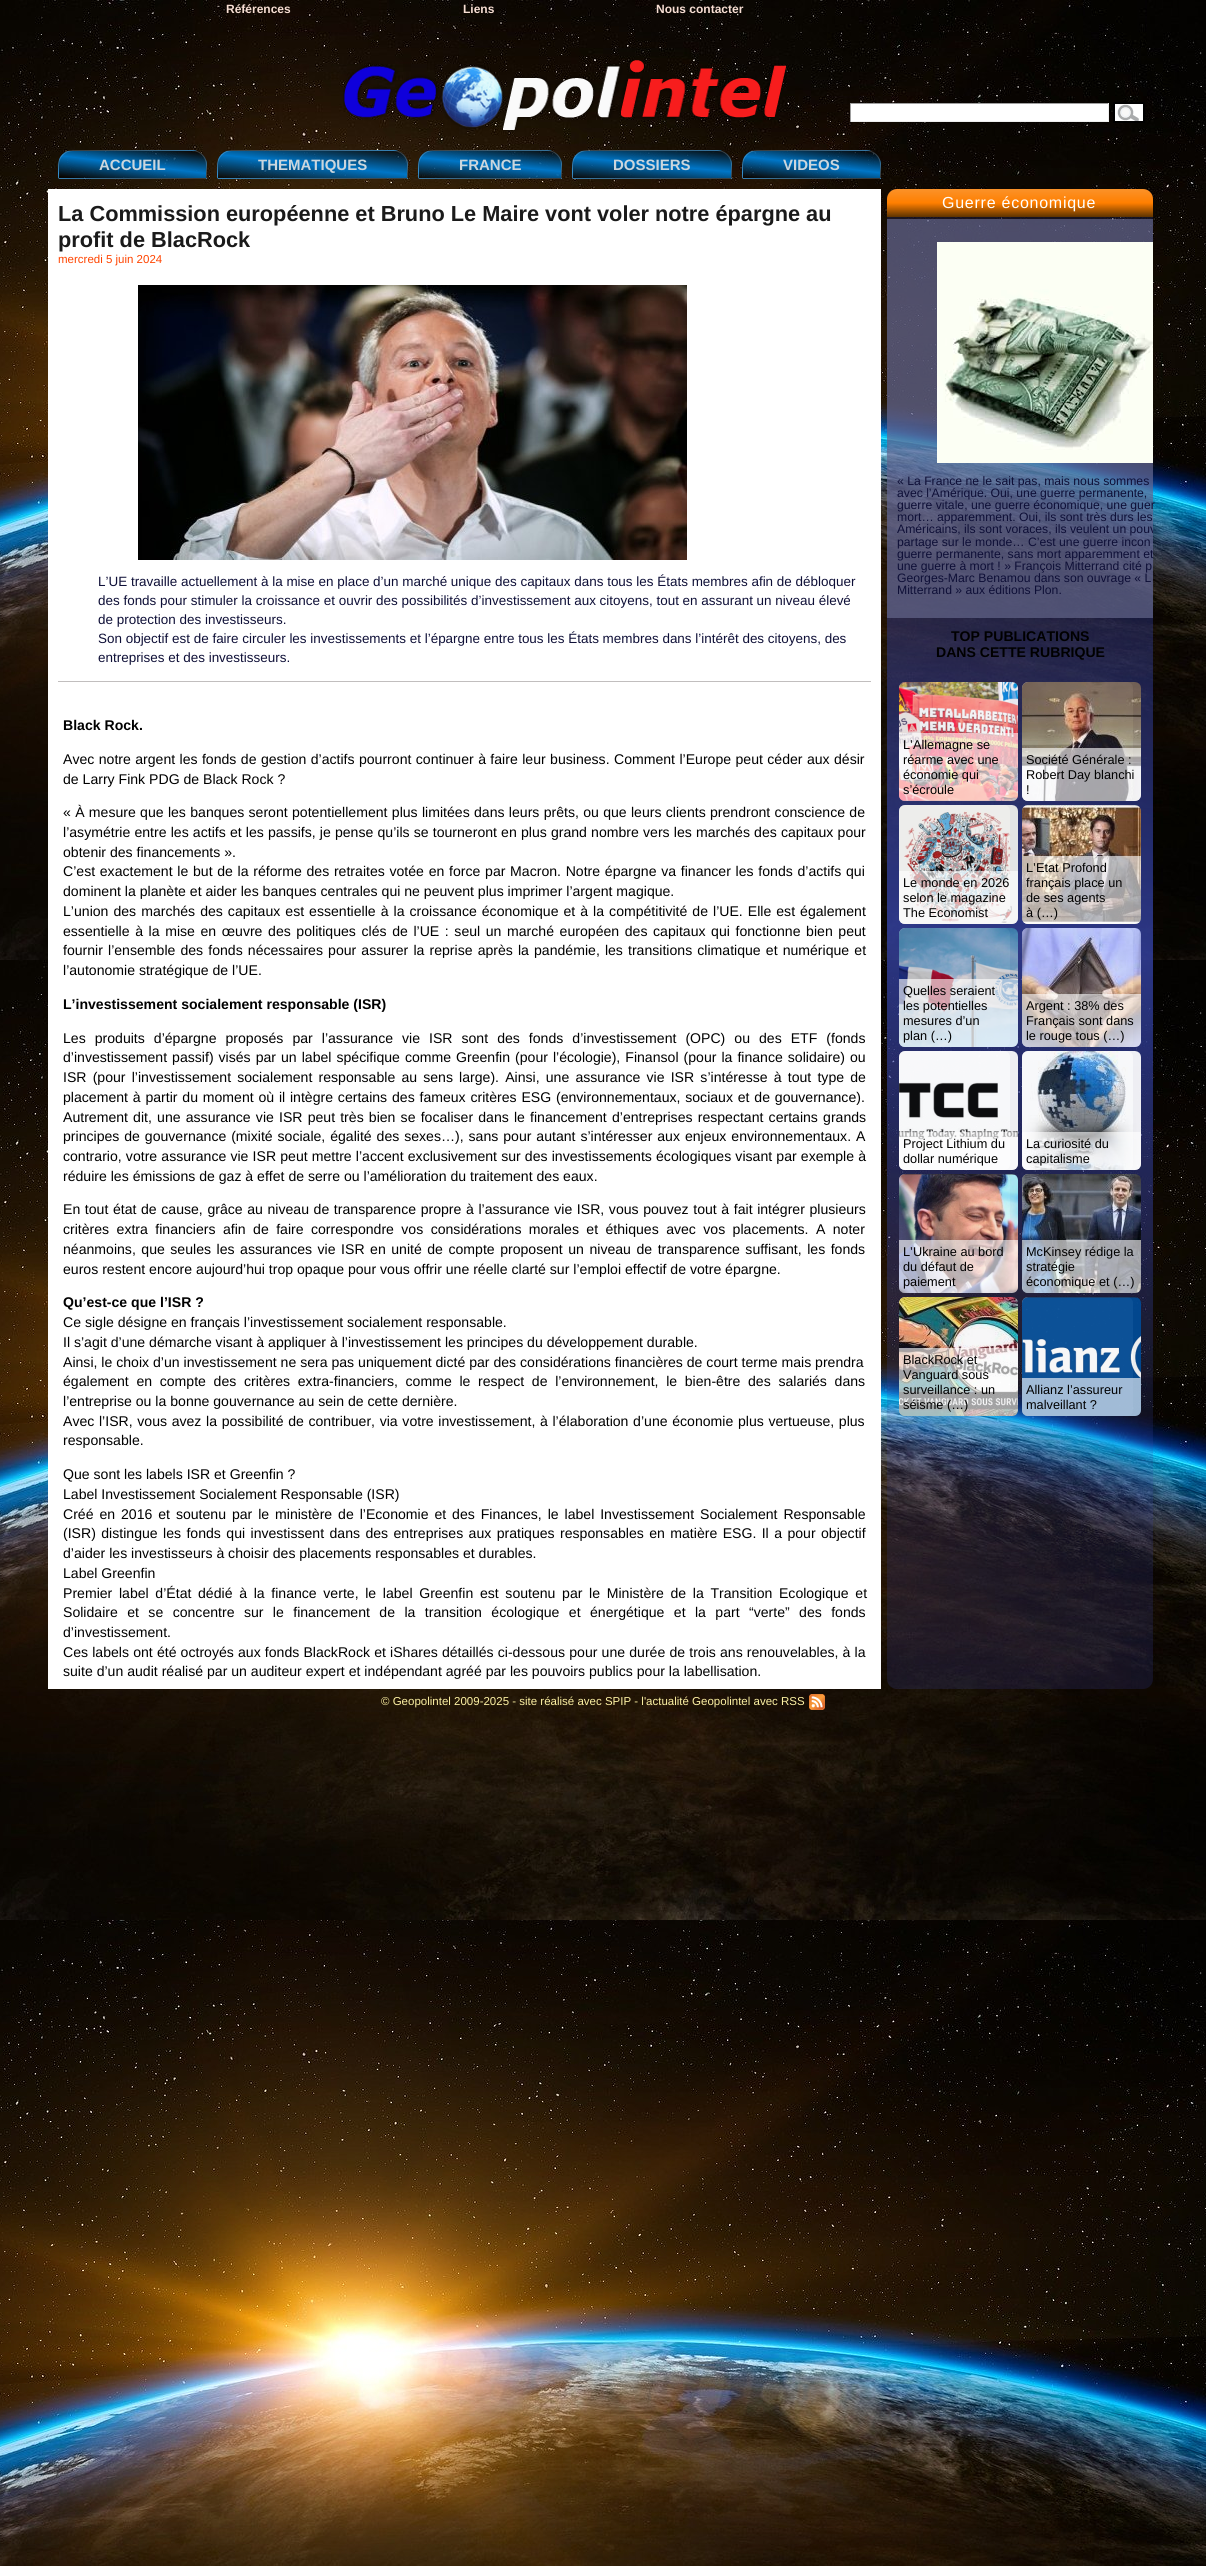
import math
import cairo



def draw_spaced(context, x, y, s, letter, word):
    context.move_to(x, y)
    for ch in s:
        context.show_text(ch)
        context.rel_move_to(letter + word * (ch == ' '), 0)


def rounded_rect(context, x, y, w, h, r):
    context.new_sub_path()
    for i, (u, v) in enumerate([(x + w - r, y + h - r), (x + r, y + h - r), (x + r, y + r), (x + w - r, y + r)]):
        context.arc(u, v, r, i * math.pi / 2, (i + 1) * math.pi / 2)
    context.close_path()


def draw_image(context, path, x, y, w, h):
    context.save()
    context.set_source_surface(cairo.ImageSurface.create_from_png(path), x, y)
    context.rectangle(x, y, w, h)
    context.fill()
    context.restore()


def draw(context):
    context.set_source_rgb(1, 1, 1)
    context.paint()
    draw_image(context, "images/1.png", 0, 0, 1206, 2566)
    draw_image(context, "images/2.png", 343, 60, 443, 73)
    context.set_source_rgb(1, 1, 1)
    context.rectangle(851, 104, 257, 17)
    context.fill()
    context.set_source_rgb(159 / 255, 159 / 255, 159 / 255)
    context.rectangle(850, 103, 259, 1)
    context.fill()
    context.set_source_rgb(238 / 255, 238 / 255, 238 / 255)
    context.rectangle(1108, 103, 1, 19)
    context.fill()
    context.rectangle(850, 121, 259, 1)
    context.fill()
    context.set_source_rgb(159 / 255, 159 / 255, 159 / 255)
    context.rectangle(850, 103, 1, 19)
    context.fill()
    context.set_source_rgb(1, 1, 1)
    context.rectangle(1115, 104, 28, 17)
    context.fill()
    draw_image(context, "images/3.png", 1117, 104, 22, 17)
    context.rectangle(1114, 103, 30, 19)
    context.set_source_rgb(0, 0, 0)
    context.stroke()
    context.set_source_rgba(0, 0, 0, 0.71)
    context.new_path()
    context.move_to(73, 150)
    context.line_to(192, 150)
    context.curve_to(200.5, 150, 207, 156.5, 207, 165)
    context.line_to(207, 179)
    context.line_to(58, 179)
    context.line_to(58, 165)
    context.curve_to(58, 156.5, 64.5, 150, 73, 150)
    context.close_path()
    context.fill()
    context.save()
    context.new_path()
    context.move_to(73, 150)
    context.line_to(192, 150)
    context.curve_to(200.5, 150, 207, 156.5, 207, 165)
    context.line_to(207, 179)
    context.line_to(58, 179)
    context.line_to(58, 165)
    context.curve_to(58, 156.5, 64.5, 150, 73, 150)
    context.close_path()
    context.clip()
    gradient = cairo.LinearGradient(130, 158, 135, 117)
    gradient.add_color_stop_rgba(0, 0, 118 / 255, 199 / 255, 0)
    gradient.add_color_stop_rgba(0.5, 0, 118 / 255, 199 / 255, 1)
    gradient.add_color_stop_rgba(1, 0, 118 / 255, 199 / 255, 0)
    context.set_source(gradient)
    context.rectangle(72, 150, 125, 1)
    context.fill()
    gradient = cairo.LinearGradient(-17, 185, -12, 144)
    gradient.add_color_stop_rgba(0, 0, 118 / 255, 199 / 255, 0)
    gradient.add_color_stop_rgba(0.5, 0, 118 / 255, 199 / 255, 1)
    gradient.add_color_stop_rgba(1, 0, 118 / 255, 199 / 255, 0)
    context.set_source(gradient)
    context.rectangle(58, 160, 1, 18)
    context.fill()
    gradient = cairo.LinearGradient(130, 185, 135, 144)
    gradient.add_color_stop_rgba(0, 0, 118 / 255, 199 / 255, 0)
    gradient.add_color_stop_rgba(0.5, 0, 118 / 255, 199 / 255, 1)
    gradient.add_color_stop_rgba(1, 0, 118 / 255, 199 / 255, 0)
    context.set_source(gradient)
    context.rectangle(59, 151, 147, 27)
    context.fill()
    gradient = cairo.LinearGradient(277, 185, 282, 144)
    gradient.add_color_stop_rgba(0, 0, 118 / 255, 199 / 255, 0)
    gradient.add_color_stop_rgba(0.5, 0, 118 / 255, 199 / 255, 1)
    gradient.add_color_stop_rgba(1, 0, 118 / 255, 199 / 255, 0)
    context.set_source(gradient)
    context.rectangle(206, 160, 1, 18)
    context.fill()
    context.restore()
    gradient = cairo.LinearGradient(130, 212, 135, 171)
    gradient.add_color_stop_rgba(0, 0, 118 / 255, 199 / 255, 0)
    gradient.add_color_stop_rgba(0.5, 0, 118 / 255, 199 / 255, 1)
    gradient.add_color_stop_rgba(1, 0, 118 / 255, 199 / 255, 0)
    context.set_source(gradient)
    context.rectangle(59, 178, 134, 1)
    context.fill()
    gradient = cairo.LinearGradient(277, 212, 282, 171)
    gradient.add_color_stop_rgba(0, 13 / 255, 8 / 255, 3 / 255, 1)
    gradient.add_color_stop_rgba(0.5, 0, 118 / 255, 199 / 255, 1)
    gradient.add_color_stop_rgba(1, 13 / 255, 8 / 255, 3 / 255, 1)
    context.set_source(gradient)
    context.rectangle(206, 178, 1, 1)
    context.fill()
    context.new_path()
    context.move_to(73, 150.5)
    context.line_to(192, 150.5)
    context.curve_to(200, 150.5, 206.5, 157, 206.5, 165)
    context.line_to(206.5, 178.5)
    context.line_to(58.5, 178.5)
    context.line_to(58.5, 165)
    context.curve_to(58.5, 157, 65, 150.5, 73, 150.5)
    context.close_path()
    context.set_source_rgba(1, 1, 1, 0.2)
    context.set_line_width(1)
    context.stroke()
    context.set_source_rgba(0, 0, 0, 0.71)
    context.new_path()
    context.move_to(232, 150)
    context.line_to(393, 150)
    context.curve_to(401.5, 150, 408, 156.5, 408, 165)
    context.line_to(408, 179)
    context.line_to(217, 179)
    context.line_to(217, 165)
    context.curve_to(217, 156.5, 223.5, 150, 232, 150)
    context.close_path()
    context.fill()
    context.save()
    context.new_path()
    context.move_to(232, 150)
    context.line_to(393, 150)
    context.curve_to(401.5, 150, 408, 156.5, 408, 165)
    context.line_to(408, 179)
    context.line_to(217, 179)
    context.line_to(217, 165)
    context.curve_to(217, 156.5, 223.5, 150, 232, 150)
    context.close_path()
    context.clip()
    gradient = cairo.LinearGradient(310, 161, 315, 114)
    gradient.add_color_stop_rgba(0, 0, 118 / 255, 199 / 255, 0)
    gradient.add_color_stop_rgba(0.5, 0, 118 / 255, 199 / 255, 1)
    gradient.add_color_stop_rgba(1, 0, 118 / 255, 199 / 255, 0)
    context.set_source(gradient)
    context.rectangle(228, 150, 170, 1)
    context.fill()
    gradient = cairo.LinearGradient(121, 188, 126, 141)
    gradient.add_color_stop_rgba(0, 0, 118 / 255, 199 / 255, 0)
    gradient.add_color_stop_rgba(0.5, 0, 118 / 255, 199 / 255, 1)
    gradient.add_color_stop_rgba(1, 0, 118 / 255, 199 / 255, 0)
    context.set_source(gradient)
    context.rectangle(217, 160, 1, 18)
    context.fill()
    gradient = cairo.LinearGradient(310, 188, 315, 141)
    gradient.add_color_stop_rgba(0, 0, 118 / 255, 199 / 255, 0)
    gradient.add_color_stop_rgba(0.5, 0, 118 / 255, 199 / 255, 1)
    gradient.add_color_stop_rgba(1, 0, 118 / 255, 199 / 255, 0)
    context.set_source(gradient)
    context.rectangle(218, 151, 189, 27)
    context.fill()
    gradient = cairo.LinearGradient(499, 188, 504, 141)
    gradient.add_color_stop_rgba(0, 0, 118 / 255, 199 / 255, 0)
    gradient.add_color_stop_rgba(0.5, 0, 118 / 255, 199 / 255, 1)
    gradient.add_color_stop_rgba(1, 0, 118 / 255, 199 / 255, 0)
    context.set_source(gradient)
    context.rectangle(407, 160, 1, 18)
    context.fill()
    context.restore()
    gradient = cairo.LinearGradient(121, 215, 126, 168)
    gradient.add_color_stop_rgba(0, 13 / 255, 8 / 255, 1 / 255, 1)
    gradient.add_color_stop_rgba(0.5, 0, 118 / 255, 199 / 255, 1)
    gradient.add_color_stop_rgba(1, 13 / 255, 8 / 255, 1 / 255, 1)
    context.set_source(gradient)
    context.rectangle(217, 178, 1, 1)
    context.fill()
    gradient = cairo.LinearGradient(310, 215, 315, 168)
    gradient.add_color_stop_rgba(0, 0, 118 / 255, 199 / 255, 0)
    gradient.add_color_stop_rgba(0.5, 0, 118 / 255, 199 / 255, 1)
    gradient.add_color_stop_rgba(1, 0, 118 / 255, 199 / 255, 0)
    context.set_source(gradient)
    context.rectangle(218, 178, 189, 1)
    context.fill()
    gradient = cairo.LinearGradient(499, 215, 504, 168)
    gradient.add_color_stop_rgba(0, 10 / 255, 5 / 255, 0, 1)
    gradient.add_color_stop_rgba(0.5, 0, 118 / 255, 199 / 255, 1)
    gradient.add_color_stop_rgba(1, 10 / 255, 5 / 255, 0, 1)
    context.set_source(gradient)
    context.rectangle(407, 178, 1, 1)
    context.fill()
    context.new_path()
    context.move_to(232, 150.5)
    context.line_to(393, 150.5)
    context.curve_to(401, 150.5, 407.5, 157, 407.5, 165)
    context.line_to(407.5, 178.5)
    context.line_to(217.5, 178.5)
    context.line_to(217.5, 165)
    context.curve_to(217.5, 157, 224, 150.5, 232, 150.5)
    context.close_path()
    context.set_source_rgba(1, 1, 1, 0.2)
    context.stroke()
    context.set_source_rgba(0, 0, 0, 0.71)
    context.new_path()
    context.move_to(433, 150)
    context.line_to(547, 150)
    context.curve_to(555.5, 150, 562, 156.5, 562, 165)
    context.line_to(562, 179)
    context.line_to(418, 179)
    context.line_to(418, 165)
    context.curve_to(418, 156.5, 424.5, 150, 433, 150)
    context.close_path()
    context.fill()
    context.save()
    context.new_path()
    context.move_to(433, 150)
    context.line_to(547, 150)
    context.curve_to(555.5, 150, 562, 156.5, 562, 165)
    context.line_to(562, 179)
    context.line_to(418, 179)
    context.line_to(418, 165)
    context.curve_to(418, 156.5, 424.5, 150, 433, 150)
    context.close_path()
    context.clip()
    gradient = cairo.LinearGradient(488, 158, 492, 117)
    gradient.add_color_stop_rgba(0, 0, 118 / 255, 199 / 255, 0)
    gradient.add_color_stop_rgba(0.5, 0, 118 / 255, 199 / 255, 1)
    gradient.add_color_stop_rgba(1, 0, 118 / 255, 199 / 255, 0)
    context.set_source(gradient)
    context.rectangle(428, 150, 124, 1)
    context.fill()
    gradient = cairo.LinearGradient(346, 185, 350, 144)
    gradient.add_color_stop_rgba(0, 0, 118 / 255, 199 / 255, 0)
    gradient.add_color_stop_rgba(0.5, 0, 118 / 255, 199 / 255, 1)
    gradient.add_color_stop_rgba(1, 0, 118 / 255, 199 / 255, 0)
    context.set_source(gradient)
    context.rectangle(418, 160, 1, 18)
    context.fill()
    gradient = cairo.LinearGradient(488, 185, 492, 144)
    gradient.add_color_stop_rgba(0, 0, 118 / 255, 199 / 255, 0)
    gradient.add_color_stop_rgba(0.5, 0, 118 / 255, 199 / 255, 1)
    gradient.add_color_stop_rgba(1, 0, 118 / 255, 199 / 255, 0)
    context.set_source(gradient)
    context.rectangle(419, 151, 142, 27)
    context.fill()
    gradient = cairo.LinearGradient(630, 185, 634, 144)
    gradient.add_color_stop_rgba(0, 0, 118 / 255, 199 / 255, 0)
    gradient.add_color_stop_rgba(0.5, 0, 118 / 255, 199 / 255, 1)
    gradient.add_color_stop_rgba(1, 0, 118 / 255, 199 / 255, 0)
    context.set_source(gradient)
    context.rectangle(561, 160, 1, 18)
    context.fill()
    context.restore()
    gradient = cairo.LinearGradient(346, 212, 350, 171)
    gradient.add_color_stop_rgba(0, 13 / 255, 8 / 255, 1 / 255, 1)
    gradient.add_color_stop_rgba(0.5, 0, 118 / 255, 199 / 255, 1)
    gradient.add_color_stop_rgba(1, 13 / 255, 8 / 255, 1 / 255, 1)
    context.set_source(gradient)
    context.rectangle(418, 178, 1, 1)
    context.fill()
    gradient = cairo.LinearGradient(488, 212, 492, 171)
    gradient.add_color_stop_rgba(0, 0, 118 / 255, 199 / 255, 0)
    gradient.add_color_stop_rgba(0.5, 0, 118 / 255, 199 / 255, 1)
    gradient.add_color_stop_rgba(1, 0, 118 / 255, 199 / 255, 0)
    context.set_source(gradient)
    context.rectangle(419, 178, 142, 1)
    context.fill()
    gradient = cairo.LinearGradient(630, 212, 634, 171)
    gradient.add_color_stop_rgba(0, 12 / 255, 7 / 255, 3 / 255, 1)
    gradient.add_color_stop_rgba(0.5, 0, 118 / 255, 199 / 255, 1)
    gradient.add_color_stop_rgba(1, 12 / 255, 7 / 255, 3 / 255, 1)
    context.set_source(gradient)
    context.rectangle(561, 178, 1, 1)
    context.fill()
    context.new_path()
    context.move_to(433, 150.5)
    context.line_to(547, 150.5)
    context.curve_to(555, 150.5, 561.5, 157, 561.5, 165)
    context.line_to(561.5, 178.5)
    context.line_to(418.5, 178.5)
    context.line_to(418.5, 165)
    context.curve_to(418.5, 157, 425, 150.5, 433, 150.5)
    context.close_path()
    context.set_source_rgba(1, 1, 1, 0.2)
    context.stroke()
    context.set_source_rgba(0, 0, 0, 0.71)
    context.new_path()
    context.move_to(587, 150)
    context.line_to(717, 150)
    context.curve_to(725.5, 150, 732, 156.5, 732, 165)
    context.line_to(732, 179)
    context.line_to(572, 179)
    context.line_to(572, 165)
    context.curve_to(572, 156.5, 578.5, 150, 587, 150)
    context.close_path()
    context.fill()
    context.save()
    context.new_path()
    context.move_to(587, 150)
    context.line_to(717, 150)
    context.curve_to(725.5, 150, 732, 156.5, 732, 165)
    context.line_to(732, 179)
    context.line_to(572, 179)
    context.line_to(572, 165)
    context.curve_to(572, 156.5, 578.5, 150, 587, 150)
    context.close_path()
    context.clip()
    gradient = cairo.LinearGradient(650, 159, 654, 116)
    gradient.add_color_stop_rgba(0, 0, 118 / 255, 199 / 255, 0)
    gradient.add_color_stop_rgba(0.5, 0, 118 / 255, 199 / 255, 1)
    gradient.add_color_stop_rgba(1, 0, 118 / 255, 199 / 255, 0)
    context.set_source(gradient)
    context.rectangle(582, 150, 140, 1)
    context.fill()
    gradient = cairo.LinearGradient(492, 186, 496, 143)
    gradient.add_color_stop_rgba(0, 0, 118 / 255, 199 / 255, 0)
    gradient.add_color_stop_rgba(0.5, 0, 118 / 255, 199 / 255, 1)
    gradient.add_color_stop_rgba(1, 0, 118 / 255, 199 / 255, 0)
    context.set_source(gradient)
    context.rectangle(572, 160, 1, 18)
    context.fill()
    gradient = cairo.LinearGradient(650, 186, 654, 143)
    gradient.add_color_stop_rgba(0, 0, 118 / 255, 199 / 255, 0)
    gradient.add_color_stop_rgba(0.5, 0, 118 / 255, 199 / 255, 1)
    gradient.add_color_stop_rgba(1, 0, 118 / 255, 199 / 255, 0)
    context.set_source(gradient)
    context.rectangle(573, 151, 158, 27)
    context.fill()
    gradient = cairo.LinearGradient(808, 186, 812, 143)
    gradient.add_color_stop_rgba(0, 0, 118 / 255, 199 / 255, 0)
    gradient.add_color_stop_rgba(0.5, 0, 118 / 255, 199 / 255, 1)
    gradient.add_color_stop_rgba(1, 0, 118 / 255, 199 / 255, 0)
    context.set_source(gradient)
    context.rectangle(731, 160, 1, 18)
    context.fill()
    context.restore()
    gradient = cairo.LinearGradient(492, 213, 496, 170)
    gradient.add_color_stop_rgba(0, 13 / 255, 8 / 255, 4 / 255, 1)
    gradient.add_color_stop_rgba(0.5, 0, 118 / 255, 199 / 255, 1)
    gradient.add_color_stop_rgba(1, 13 / 255, 8 / 255, 4 / 255, 1)
    context.set_source(gradient)
    context.rectangle(572, 178, 1, 1)
    context.fill()
    gradient = cairo.LinearGradient(650, 213, 654, 170)
    gradient.add_color_stop_rgba(0, 0, 118 / 255, 199 / 255, 0)
    gradient.add_color_stop_rgba(0.5, 0, 118 / 255, 199 / 255, 1)
    gradient.add_color_stop_rgba(1, 0, 118 / 255, 199 / 255, 0)
    context.set_source(gradient)
    context.rectangle(573, 178, 158, 1)
    context.fill()
    gradient = cairo.LinearGradient(808, 213, 812, 170)
    gradient.add_color_stop_rgba(0, 10 / 255, 5 / 255, 1 / 255, 1)
    gradient.add_color_stop_rgba(0.5, 0, 118 / 255, 199 / 255, 1)
    gradient.add_color_stop_rgba(1, 10 / 255, 5 / 255, 1 / 255, 1)
    context.set_source(gradient)
    context.rectangle(731, 178, 1, 1)
    context.fill()
    context.new_path()
    context.move_to(587, 150.5)
    context.line_to(717, 150.5)
    context.curve_to(725, 150.5, 731.5, 157, 731.5, 165)
    context.line_to(731.5, 178.5)
    context.line_to(572.5, 178.5)
    context.line_to(572.5, 165)
    context.curve_to(572.5, 157, 579, 150.5, 587, 150.5)
    context.close_path()
    context.set_source_rgba(1, 1, 1, 0.2)
    context.stroke()
    context.set_source_rgba(0, 0, 0, 0.71)
    context.new_path()
    context.move_to(757, 150)
    context.line_to(866, 150)
    context.curve_to(874.5, 150, 881, 156.5, 881, 165)
    context.line_to(881, 179)
    context.line_to(742, 179)
    context.line_to(742, 165)
    context.curve_to(742, 156.5, 748.5, 150, 757, 150)
    context.close_path()
    context.fill()
    context.save()
    context.new_path()
    context.move_to(757, 150)
    context.line_to(866, 150)
    context.curve_to(874.5, 150, 881, 156.5, 881, 165)
    context.line_to(881, 179)
    context.line_to(742, 179)
    context.line_to(742, 165)
    context.curve_to(742, 156.5, 748.5, 150, 757, 150)
    context.close_path()
    context.clip()
    gradient = cairo.LinearGradient(809, 158, 814, 117)
    gradient.add_color_stop_rgba(0, 0, 118 / 255, 199 / 255, 0)
    gradient.add_color_stop_rgba(0.5, 0, 118 / 255, 199 / 255, 1)
    gradient.add_color_stop_rgba(1, 0, 118 / 255, 199 / 255, 0)
    context.set_source(gradient)
    context.rectangle(754, 150, 117, 1)
    context.fill()
    gradient = cairo.LinearGradient(672, 185, 677, 144)
    gradient.add_color_stop_rgba(0, 0, 118 / 255, 199 / 255, 0)
    gradient.add_color_stop_rgba(0.5, 0, 118 / 255, 199 / 255, 1)
    gradient.add_color_stop_rgba(1, 0, 118 / 255, 199 / 255, 0)
    context.set_source(gradient)
    context.rectangle(742, 160, 1, 18)
    context.fill()
    gradient = cairo.LinearGradient(809, 185, 814, 144)
    gradient.add_color_stop_rgba(0, 0, 118 / 255, 199 / 255, 0)
    gradient.add_color_stop_rgba(0.5, 0, 118 / 255, 199 / 255, 1)
    gradient.add_color_stop_rgba(1, 0, 118 / 255, 199 / 255, 0)
    context.set_source(gradient)
    context.rectangle(743, 151, 137, 27)
    context.fill()
    gradient = cairo.LinearGradient(946, 185, 951, 144)
    gradient.add_color_stop_rgba(0, 0, 118 / 255, 199 / 255, 0)
    gradient.add_color_stop_rgba(0.5, 0, 118 / 255, 199 / 255, 1)
    gradient.add_color_stop_rgba(1, 0, 118 / 255, 199 / 255, 0)
    context.set_source(gradient)
    context.rectangle(880, 160, 1, 18)
    context.fill()
    context.restore()
    gradient = cairo.LinearGradient(809, 212, 814, 171)
    gradient.add_color_stop_rgba(0, 0, 118 / 255, 199 / 255, 0)
    gradient.add_color_stop_rgba(0.5, 0, 118 / 255, 199 / 255, 1)
    gradient.add_color_stop_rgba(1, 0, 118 / 255, 199 / 255, 0)
    context.set_source(gradient)
    context.rectangle(743, 178, 137, 1)
    context.fill()
    gradient = cairo.LinearGradient(946, 212, 951, 171)
    gradient.add_color_stop_rgba(0, 8 / 255, 6 / 255, 4 / 255, 1)
    gradient.add_color_stop_rgba(0.5, 0, 118 / 255, 199 / 255, 1)
    gradient.add_color_stop_rgba(1, 8 / 255, 6 / 255, 4 / 255, 1)
    context.set_source(gradient)
    context.rectangle(880, 178, 1, 1)
    context.fill()
    context.new_path()
    context.move_to(757, 150.5)
    context.line_to(866, 150.5)
    context.curve_to(874, 150.5, 880.5, 157, 880.5, 165)
    context.line_to(880.5, 178.5)
    context.line_to(742.5, 178.5)
    context.line_to(742.5, 165)
    context.curve_to(742.5, 157, 749, 150.5, 757, 150.5)
    context.close_path()
    context.set_source_rgba(1, 1, 1, 0.2)
    context.stroke()
    context.set_source_rgb(1, 1, 1)
    context.rectangle(48, 189, 833, 1500)
    context.fill()
    context.set_source_rgb(193 / 255, 190 / 255, 190 / 255)
    context.rectangle(58, 681, 813, 1)
    context.fill()
    draw_image(context, "images/4.png", 138, 285, 549, 275)
    gradient = cairo.LinearGradient(1020, 217, 1020, 189)
    gradient.add_color_stop_rgba(0, 93 / 255, 51 / 255, 0, 1)
    gradient.add_color_stop_rgba(0.5, 1, 127 / 255, 0, 1)
    gradient.add_color_stop_rgba(1, 251 / 255, 146 / 255, 42 / 255, 1)
    context.set_source(gradient)
    context.new_path()
    context.move_to(897, 189)
    context.line_to(1143, 189)
    context.curve_to(1148.5, 189, 1153, 193.5, 1153, 199)
    context.line_to(1153, 217)
    context.line_to(887, 217)
    context.line_to(887, 199)
    context.curve_to(887, 193.5, 891.5, 189, 897, 189)
    context.close_path()
    context.fill()
    context.set_source_rgba(104 / 255, 107 / 255, 142 / 255, 0.66)
    context.rectangle(887, 219, 266, 399)
    context.fill()
    draw_image(context, "images/5.png", 937, 242, 216, 221)
    context.set_source_rgba(1, 1, 1, 0.56)
    rounded_rect(context, 899, 682, 111, 119, 6)
    context.fill()
    draw_image(context, "images/6.png", 899, 682, 119, 119)
    context.set_source_rgba(1, 1, 1, 0.61)
    context.new_path()
    context.move_to(899, 733)
    context.line_to(1018, 733)
    context.line_to(1018, 795)
    context.curve_to(1018, 798.5, 1015.5, 801, 1012, 801)
    context.line_to(905, 801)
    context.curve_to(901.5, 801, 899, 798.5, 899, 795)
    context.close_path()
    context.fill()
    context.set_source_rgba(1, 1, 1, 0.56)
    rounded_rect(context, 1022, 682, 111, 119, 6)
    context.fill()
    draw_image(context, "images/7.png", 1022, 682, 119, 119)
    context.set_source_rgba(1, 1, 1, 0.61)
    context.new_path()
    context.move_to(1022, 748)
    context.line_to(1141, 748)
    context.line_to(1141, 795)
    context.curve_to(1141, 798.5, 1138.5, 801, 1135, 801)
    context.line_to(1028, 801)
    context.curve_to(1024.5, 801, 1022, 798.5, 1022, 795)
    context.close_path()
    context.fill()
    context.set_source_rgba(1, 1, 1, 0.56)
    rounded_rect(context, 899, 805, 111, 119, 6)
    context.fill()
    draw_image(context, "images/8.png", 899, 805, 119, 119)
    context.set_source_rgba(1, 1, 1, 0.61)
    context.new_path()
    context.move_to(899, 871)
    context.line_to(1018, 871)
    context.line_to(1018, 918)
    context.curve_to(1018, 921.5, 1015.5, 924, 1012, 924)
    context.line_to(905, 924)
    context.curve_to(901.5, 924, 899, 921.5, 899, 918)
    context.close_path()
    context.fill()
    context.set_source_rgba(1, 1, 1, 0.56)
    rounded_rect(context, 1022, 805, 111, 119, 6)
    context.fill()
    draw_image(context, "images/9.png", 1022, 805, 119, 119)
    context.set_source_rgba(1, 1, 1, 0.61)
    context.new_path()
    context.move_to(1022, 856)
    context.line_to(1141, 856)
    context.line_to(1141, 918)
    context.curve_to(1141, 921.5, 1138.5, 924, 1135, 924)
    context.line_to(1028, 924)
    context.curve_to(1024.5, 924, 1022, 921.5, 1022, 918)
    context.close_path()
    context.fill()
    context.set_source_rgba(1, 1, 1, 0.56)
    rounded_rect(context, 899, 928, 111, 119, 6)
    context.fill()
    draw_image(context, "images/10.png", 899, 928, 119, 119)
    context.set_source_rgba(1, 1, 1, 0.61)
    context.new_path()
    context.move_to(899, 979)
    context.line_to(1018, 979)
    context.line_to(1018, 1041)
    context.curve_to(1018, 1044.5, 1015.5, 1047, 1012, 1047)
    context.line_to(905, 1047)
    context.curve_to(901.5, 1047, 899, 1044.5, 899, 1041)
    context.close_path()
    context.fill()
    context.set_source_rgba(1, 1, 1, 0.56)
    rounded_rect(context, 1022, 928, 111, 119, 6)
    context.fill()
    draw_image(context, "images/11.png", 1022, 928, 119, 119)
    context.set_source_rgba(1, 1, 1, 0.61)
    context.new_path()
    context.move_to(1022, 994)
    context.line_to(1141, 994)
    context.line_to(1141, 1041)
    context.curve_to(1141, 1044.5, 1138.5, 1047, 1135, 1047)
    context.line_to(1028, 1047)
    context.curve_to(1024.5, 1047, 1022, 1044.5, 1022, 1041)
    context.close_path()
    context.fill()
    context.set_source_rgba(1, 1, 1, 0.56)
    rounded_rect(context, 899, 1051, 111, 119, 6)
    context.fill()
    draw_image(context, "images/12.png", 899, 1051, 119, 119)
    context.set_source_rgba(1, 1, 1, 0.61)
    context.new_path()
    context.move_to(899, 1132)
    context.line_to(1018, 1132)
    context.line_to(1018, 1164)
    context.curve_to(1018, 1167.5, 1015.5, 1170, 1012, 1170)
    context.line_to(905, 1170)
    context.curve_to(901.5, 1170, 899, 1167.5, 899, 1164)
    context.close_path()
    context.fill()
    context.set_source_rgba(1, 1, 1, 0.56)
    rounded_rect(context, 1022, 1051, 111, 119, 6)
    context.fill()
    draw_image(context, "images/13.png", 1022, 1051, 119, 119)
    context.set_source_rgba(1, 1, 1, 0.61)
    context.new_path()
    context.move_to(1022, 1132)
    context.line_to(1141, 1132)
    context.line_to(1141, 1164)
    context.curve_to(1141, 1167.5, 1138.5, 1170, 1135, 1170)
    context.line_to(1028, 1170)
    context.curve_to(1024.5, 1170, 1022, 1167.5, 1022, 1164)
    context.close_path()
    context.fill()
    context.set_source_rgba(1, 1, 1, 0.56)
    rounded_rect(context, 899, 1174, 111, 119, 6)
    context.fill()
    draw_image(context, "images/14.png", 899, 1174, 119, 119)
    context.set_source_rgba(1, 1, 1, 0.61)
    context.new_path()
    context.move_to(899, 1240)
    context.line_to(1018, 1240)
    context.line_to(1018, 1287)
    context.curve_to(1018, 1290.5, 1015.5, 1293, 1012, 1293)
    context.line_to(905, 1293)
    context.curve_to(901.5, 1293, 899, 1290.5, 899, 1287)
    context.close_path()
    context.fill()
    context.set_source_rgba(1, 1, 1, 0.56)
    rounded_rect(context, 1022, 1174, 111, 119, 6)
    context.fill()
    draw_image(context, "images/15.png", 1022, 1174, 119, 119)
    context.set_source_rgba(1, 1, 1, 0.61)
    context.new_path()
    context.move_to(1022, 1240)
    context.line_to(1141, 1240)
    context.line_to(1141, 1287)
    context.curve_to(1141, 1290.5, 1138.5, 1293, 1135, 1293)
    context.line_to(1028, 1293)
    context.curve_to(1024.5, 1293, 1022, 1290.5, 1022, 1287)
    context.close_path()
    context.fill()
    context.set_source_rgba(1, 1, 1, 0.56)
    rounded_rect(context, 899, 1297, 111, 119, 6)
    context.fill()
    draw_image(context, "images/16.png", 899, 1297, 119, 119)
    context.set_source_rgba(1, 1, 1, 0.61)
    context.new_path()
    context.move_to(899, 1348)
    context.line_to(1018, 1348)
    context.line_to(1018, 1410)
    context.curve_to(1018, 1413.5, 1015.5, 1416, 1012, 1416)
    context.line_to(905, 1416)
    context.curve_to(901.5, 1416, 899, 1413.5, 899, 1410)
    context.close_path()
    context.fill()
    context.set_source_rgba(1, 1, 1, 0.56)
    rounded_rect(context, 1022, 1297, 111, 119, 6)
    context.fill()
    draw_image(context, "images/17.png", 1022, 1297, 119, 119)
    context.set_source_rgba(1, 1, 1, 0.61)
    context.new_path()
    context.move_to(1022, 1378)
    context.line_to(1141, 1378)
    context.line_to(1141, 1410)
    context.curve_to(1141, 1413.5, 1138.5, 1416, 1135, 1416)
    context.line_to(1028, 1416)
    context.curve_to(1024.5, 1416, 1022, 1413.5, 1022, 1410)
    context.close_path()
    context.fill()
    draw_image(context, "images/18.png", 809, 1694, 16, 16)
    context.select_font_face("Liberation Sans", cairo.FontSlant.NORMAL, cairo.FontWeight.BOLD)
    context.set_font_size(12)
    context.set_source_rgb(247 / 255, 222 / 255, 211 / 255)
    context.move_to(226, 13)
    context.show_text("Références")
    context.move_to(463, 13)
    context.show_text("Liens")
    context.move_to(656, 13)
    context.show_text("Nous contacter")
    context.set_font_size(15)
    context.set_source_rgb(203 / 255, 214 / 255, 221 / 255)
    context.move_to(99, 170)
    context.show_text("ACCUEIL")
    context.move_to(258, 170)
    context.show_text("THEMATIQUES")
    context.move_to(459, 170)
    context.show_text("FRANCE")
    context.move_to(613, 170)
    context.show_text("DOSSIERS")
    context.move_to(783, 170)
    context.show_text("VIDEOS")
    context.set_font_size(21.75)
    context.set_source_rgb(26 / 255, 26 / 255, 26 / 255)
    context.move_to(58, 221)
    context.show_text("La Commission européenne et Bruno Le Maire vont voler notre épargne au")
    context.move_to(58, 247)
    context.show_text("profit de BlacRock")
    context.select_font_face("Liberation Sans")
    context.set_font_size(11.5)
    context.set_source_rgb(1, 68 / 255, 0)
    context.move_to(58, 263)
    context.show_text("mercredi 5 juin 2024")
    context.set_font_size(13.45)
    context.set_source_rgb(14 / 255, 15 / 255, 55 / 255)
    context.move_to(98, 586)
    context.show_text("L’UE travaille actuellement à la mise en place d’un marché unique des capitaux dans tous les États membres afin de débloquer")
    context.move_to(98, 605)
    context.show_text("des fonds pour stimuler la croissance et ouvrir des possibilités d’investissement aux citoyens, tout en assurant un niveau élevé")
    context.move_to(98, 624)
    context.show_text("de protection des investisseurs.")
    context.move_to(98, 643)
    context.show_text("Son objectif est de faire circuler les investissements et l’épargne entre tous les États membres dans l’intérêt des citoyens, des")
    context.move_to(98, 662)
    context.show_text("entreprises et des investisseurs.")
    context.select_font_face("Liberation Sans", cairo.FontSlant.NORMAL, cairo.FontWeight.BOLD)
    context.set_font_size(14.08)
    context.set_source_rgb(0, 0, 0)
    context.move_to(63, 730)
    context.show_text("Black Rock.")
    context.select_font_face("Liberation Sans")
    draw_spaced(context, 63, 764, "Avec notre argent les fonds de gestion d’actifs pourront continuer à faire leur business. Comment l’Europe peut céder aux désir", 0, 0.5)
    context.move_to(63, 784)
    context.show_text("de Larry Fink PDG de Black Rock ?")
    draw_spaced(context, 63, 817, "« À mesure que les banques seront potentiellement plus limitées dans leurs prêts, ou que leurs clients prendront conscience de", 0, 0.4)
    draw_spaced(context, 63, 837, "l’asymétrie entre les actifs et les passifs, je pense qu’ils se tourneront en plus grand nombre vers les marchés des capitaux pour", 0, 0.25)
    context.move_to(63, 857)
    context.show_text("obtenir des financements ».")
    draw_spaced(context, 63, 876, "C’est exactement le but de la réforme des retraites votée en force par Macron. Notre épargne va financer les fonds d’actifs qui", 0, 0.8)
    context.move_to(63, 896)
    context.show_text("dominent la planète et aider les banques centrales qui ne peuvent plus imprimer l’argent magique.")
    draw_spaced(context, 63, 916, "L’union des marchés des capitaux est essentielle à la croissance économique et à la compétitivité de l’UE. Elle est également", 0, 1.1)
    draw_spaced(context, 63, 936, "essentielle à la mise en œuvre des politiques clés de l’UE : seul un marché européen des capitaux qui fonctionne bien peut", 0, 1.7)
    draw_spaced(context, 63, 955, "fournir l’ensemble des fonds nécessaires pour assurer la reprise après la pandémie, les transitions climatique et numérique et", 0, 1.2)
    context.move_to(63, 975)
    context.show_text("l’autonomie stratégique de l’UE.")
    context.select_font_face("Liberation Sans", cairo.FontSlant.NORMAL, cairo.FontWeight.BOLD)
    context.move_to(63, 1009)
    context.show_text("L’investissement socialement responsable (ISR)")
    context.select_font_face("Liberation Sans")
    draw_spaced(context, 63, 1043, "Les produits d’épargne proposés par l’assurance vie ISR sont des fonds d’investissement (OPC) ou des ETF (fonds", 0, 5.1)
    draw_spaced(context, 63, 1062, "d’investissement passif) visés par un label spécifique comme Greenfin (pour l’écologie), Finansol (pour la finance solidaire) ou", 0, 1.1)
    draw_spaced(context, 63, 1082, "ISR (pour l’investissement socialement responsable au sens large). Ainsi, une assurance vie ISR s’intéresse à tout type de", 0, 2.25)
    draw_spaced(context, 63, 1102, "placement à partir du moment où il intègre certains des fameux critères ESG (environnementaux, sociaux et de gouvernance).", 0, 0.9)
    draw_spaced(context, 63, 1122, "Autrement dit, une assurance vie ISR peut très bien se focaliser dans le financement d’entreprises respectant certains grands", 0, 1.25)
    draw_spaced(context, 63, 1141, "principes de gouvernance (mixité sociale, égalité des sexes…), sans pour autant s’intéresser aux enjeux environnementaux. A", 0, 1)
    draw_spaced(context, 63, 1161, "contrario, votre assurance vie ISR peut mettre l’accent exclusivement sur des investissements écologiques visant par exemple à", 0, 0.25)
    context.move_to(63, 1181)
    context.show_text("réduire les émissions de gaz à effet de serre ou l’amélioration du traitement des eaux.")
    draw_spaced(context, 63, 1214, "En tout état de cause, grâce au niveau de transparence propre à l’assurance vie ISR, vous pouvez tout à fait intégrer plusieurs", 0, 0.7)
    draw_spaced(context, 63, 1234, "critères extra financiers afin de faire correspondre vos considérations morales et éthiques avec vos placements. A noter", 0, 3.5)
    draw_spaced(context, 63, 1254, "néanmoins, que seules les assurances vie ISR en unité de compte proposent un niveau de transparence suffisant, les fonds", 0, 1.6)
    context.move_to(63, 1274)
    context.show_text("euros restent encore aujourd’hui trop opaque pour vous offrir une réelle clarté sur l’emploi effectif de votre épargne.")
    context.select_font_face("Liberation Sans", cairo.FontSlant.NORMAL, cairo.FontWeight.BOLD)
    context.move_to(63, 1307)
    context.show_text("Qu’est-ce que l’ISR ?")
    context.select_font_face("Liberation Sans")
    context.move_to(63, 1327)
    context.show_text("Ce sigle désigne en français l’investissement socialement responsable.")
    context.move_to(63, 1347)
    context.show_text("Il s’agit d’une démarche visant à appliquer à l’investissement les principes du développement durable.")
    context.move_to(63, 1367)
    context.show_text("Ainsi, le choix d’un investissement ne sera pas uniquement dicté par des considérations financières de court terme mais prendra")
    draw_spaced(context, 63, 1386, "également en compte des critères extra-financiers, comme le respect de l’environnement, le bien-être des salariés dans", 0, 3.75)
    context.move_to(63, 1406)
    context.show_text("l’entreprise ou la bonne gouvernance au sein de cette dernière.")
    draw_spaced(context, 63, 1426, "Avec l’ISR, vous avez la possibilité de contribuer, via votre investissement, à l’élaboration d’une économie plus vertueuse, plus", 0, 0.75)
    context.move_to(63, 1445)
    context.show_text("responsable.")
    context.move_to(63, 1479)
    context.show_text("Que sont les labels ISR et Greenfin ?")
    context.move_to(63, 1499)
    context.show_text("Label Investissement Socialement Responsable (ISR)")
    draw_spaced(context, 63, 1519, "Créé en 2016 et soutenu par le ministère de l’Economie et des Finances, le label Investissement Socialement Responsable", 0, 2)
    draw_spaced(context, 63, 1538, "(ISR) distingue les fonds qui investissent dans des entreprises aux pratiques responsables en matière ESG. Il a pour objectif", 0, 1.5)
    context.move_to(63, 1558)
    context.show_text("d’aider les investisseurs à choisir des placements responsables et durables.")
    context.move_to(63, 1578)
    context.show_text("Label Greenfin")
    draw_spaced(context, 63, 1598, "Premier label d’État dédié à la finance verte, le label Greenfin est soutenu par le Ministère de la Transition Ecologique et", 0, 2.75)
    draw_spaced(context, 63, 1617, "Solidaire et se concentre sur le financement de la transition écologique et énergétique et la part “verte” des fonds", 0, 5.5)
    context.move_to(63, 1637)
    context.show_text("d’investissement.")
    draw_spaced(context, 63, 1657, "Ces labels ont été octroyés aux fonds BlackRock et iShares détaillés ci-dessous pour une durée de trois ans renouvelables, à la", 0, 0.25)
    context.move_to(63, 1676)
    context.show_text("suite d’un audit réalisé par un auditeur expert et indépendant agréé par les pouvoirs publics pour la labellisation.")
    context.set_font_size(16)
    context.set_source_rgb(1, 1, 1)
    draw_spaced(context, 942, 208, "Guerre économique", 0.75, 0)
    context.set_font_size(12.2)
    context.set_source_rgb(14 / 255, 15 / 255, 55 / 255)
    context.move_to(897, 485)
    context.show_text("« La France ne le sait pas, mais nous sommes")
    context.move_to(897, 497)
    context.show_text("avec l’Amérique. Oui, une guerre permanente,")
    context.move_to(897, 509)
    context.show_text("guerre vitale, une guerre économique, une guer")
    context.move_to(897, 521)
    context.show_text("mort… apparemment. Oui, ils sont très durs les")
    context.save()
    rounded_rect(context, 887, 189, 266, 1500, 10)
    context.clip()
    context.move_to(897, 533)
    context.show_text("Américains, ils sont voraces, ils veulent un pouv")
    context.restore()
    context.move_to(897, 546)
    context.show_text("partage sur le monde… C’est une guerre incon")
    context.move_to(897, 558)
    context.show_text("guerre permanente, sans mort apparemment et")
    context.move_to(897, 570)
    context.show_text("une guerre à mort ! » François Mitterrand cité p")
    context.move_to(897, 582)
    context.show_text("Georges-Marc Benamou dans son ouvrage « L")
    context.move_to(897, 594)
    context.show_text("Mitterrand » aux éditions Plon.")
    context.select_font_face("Liberation Sans", cairo.FontSlant.NORMAL, cairo.FontWeight.BOLD)
    context.set_font_size(14.08)
    context.set_source_rgb(0, 0, 0)
    context.move_to(951, 641)
    context.show_text("TOP PUBLICATIONS")
    context.move_to(936, 657)
    context.show_text("DANS CETTE RUBRIQUE")
    context.select_font_face("Liberation Sans")
    context.set_font_size(12.75)
    context.move_to(903, 749)
    context.show_text("L’Allemagne se")
    context.move_to(903, 764)
    context.show_text("réarme avec une")
    context.move_to(903, 779)
    context.show_text("économie qui")
    context.move_to(903, 794)
    context.show_text("s’écroule")
    context.move_to(1026, 764)
    context.show_text("Société Générale :")
    context.move_to(1026, 779)
    context.show_text("Robert Day blanchi")
    context.move_to(1026, 794)
    context.show_text("!")
    context.move_to(903, 887)
    context.show_text("Le monde en 2026")
    context.move_to(903, 902)
    context.show_text("selon le magazine")
    context.move_to(903, 917)
    context.show_text("The Economist")
    context.move_to(1026, 872)
    context.show_text("L’Etat Profond")
    context.move_to(1026, 887)
    context.show_text("français place un")
    context.move_to(1026, 902)
    context.show_text("de ses agents")
    context.move_to(1026, 917)
    context.show_text("à (…)")
    context.move_to(903, 995)
    context.show_text("Quelles seraient")
    context.move_to(903, 1010)
    context.show_text("les potentielles")
    context.move_to(903, 1025)
    context.show_text("mesures d’un")
    context.move_to(903, 1040)
    context.show_text("plan (…)")
    context.move_to(1026, 1010)
    context.show_text("Argent : 38% des")
    context.move_to(1026, 1025)
    context.show_text("Français sont dans")
    context.move_to(1026, 1040)
    context.show_text("le rouge tous (…)")
    context.move_to(903, 1148)
    context.show_text("Project Lithium du")
    context.move_to(903, 1163)
    context.show_text("dollar numérique")
    context.move_to(1026, 1148)
    context.show_text("La curiosité du")
    context.move_to(1026, 1163)
    context.show_text("capitalisme")
    context.move_to(903, 1256)
    context.show_text("L’Ukraine au bord")
    context.move_to(903, 1271)
    context.show_text("du défaut de")
    context.move_to(903, 1286)
    context.show_text("paiement")
    context.move_to(1026, 1256)
    context.show_text("McKinsey rédige la")
    context.move_to(1026, 1271)
    context.show_text("stratégie")
    context.move_to(1026, 1286)
    context.show_text("économique et (…)")
    context.move_to(903, 1364)
    context.show_text("BlackRock et")
    context.move_to(903, 1379)
    context.show_text("Vanguard sous")
    context.move_to(903, 1394)
    context.show_text("surveillance : un")
    context.move_to(903, 1409)
    context.show_text("séisme (…)")
    context.move_to(1026, 1394)
    context.show_text("Allianz l’assureur")
    context.move_to(1026, 1409)
    context.show_text("malveillant ?")
    context.set_font_size(11.5)
    context.set_source_rgb(253 / 255, 241 / 255, 163 / 255)
    context.move_to(381, 1705)
    context.show_text("© Geopolintel 2009-2025 - site réalisé avec SPIP - l'actualité Geopolintel avec RSS")


surface = cairo.ImageSurface(cairo.Format.RGB24, 1206, 2566)
context = cairo.Context(surface)
options = cairo.FontOptions()
options.set_hint_metrics(cairo.HintMetrics.OFF)
options.set_hint_style(cairo.HintStyle.NONE)
context.set_font_options(options)
context.set_miter_limit(4)
draw(context)
surface.write_to_png("out.png")
